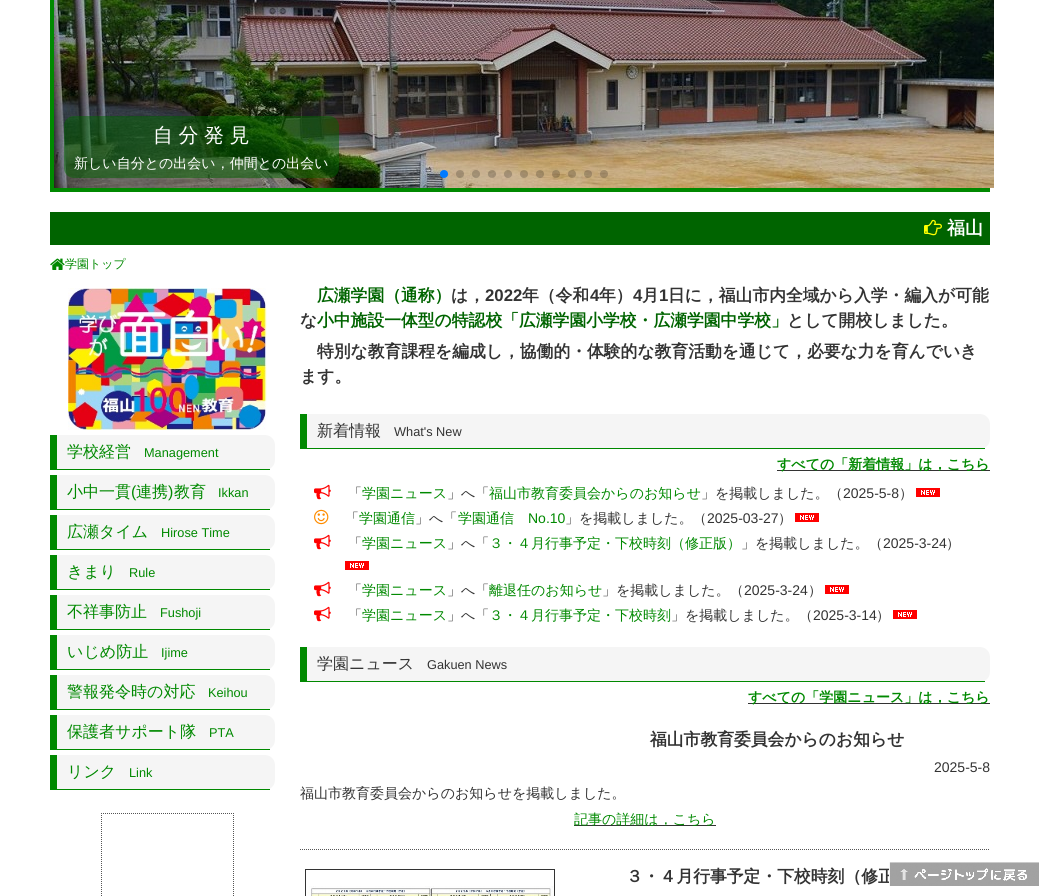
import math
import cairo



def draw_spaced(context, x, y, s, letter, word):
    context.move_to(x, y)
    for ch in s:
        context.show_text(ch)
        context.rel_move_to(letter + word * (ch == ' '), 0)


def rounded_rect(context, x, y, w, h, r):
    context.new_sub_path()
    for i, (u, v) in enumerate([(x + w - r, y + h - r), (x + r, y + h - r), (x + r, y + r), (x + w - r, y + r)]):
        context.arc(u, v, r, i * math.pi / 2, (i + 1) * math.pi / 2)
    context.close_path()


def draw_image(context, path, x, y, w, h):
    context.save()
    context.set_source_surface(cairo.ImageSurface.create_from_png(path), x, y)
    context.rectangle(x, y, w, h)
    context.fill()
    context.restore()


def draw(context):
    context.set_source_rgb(1, 1, 1)
    context.paint()
    context.set_source_rgb(0, 137 / 255, 0)
    context.rectangle(50, 0, 940, 192)
    context.fill()
    draw_image(context, "images/1.png", 54, 0, 940, 188)
    context.set_source_rgba(0, 100 / 255, 0, 0.5)
    rounded_rect(context, 64, 116, 275, 62, 10)
    context.fill()
    context.set_source_rgb(0, 122 / 255, 1)
    context.arc(444, 174, 4, 0, 2 * math.pi)
    context.fill()
    context.set_source_rgba(0, 0, 0, 0.2)
    context.arc(460, 174, 4, 0, 2 * math.pi)
    context.fill()
    context.arc(476, 174, 4, 0, 2 * math.pi)
    context.fill()
    context.arc(492, 174, 4, 0, 2 * math.pi)
    context.fill()
    context.arc(508, 174, 4, 0, 2 * math.pi)
    context.fill()
    context.arc(524, 174, 4, 0, 2 * math.pi)
    context.fill()
    context.arc(540, 174, 4, 0, 2 * math.pi)
    context.fill()
    context.arc(556, 174, 4, 0, 2 * math.pi)
    context.fill()
    context.arc(572, 174, 4, 0, 2 * math.pi)
    context.fill()
    context.arc(588, 174, 4, 0, 2 * math.pi)
    context.fill()
    context.arc(604, 174, 4, 0, 2 * math.pi)
    context.fill()
    context.set_source_rgb(0, 100 / 255, 0)
    context.rectangle(50, 212, 940, 33)
    context.fill()
    draw_image(context, "images/2.png", 924, 219, 18, 17)
    draw_image(context, "images/3.png", 50, 258, 15, 12)
    draw_image(context, "images/4.png", 68, 288, 199, 142)
    context.set_source_rgb(245 / 255, 245 / 255, 245 / 255)
    context.new_path()
    context.move_to(50, 435)
    context.line_to(265, 435)
    context.curve_to(270.5, 435, 275, 439.5, 275, 445)
    context.line_to(275, 460)
    context.curve_to(275, 465.5, 270.5, 470, 265, 470)
    context.line_to(50, 470)
    context.close_path()
    context.fill()
    context.set_source_rgb(0, 137 / 255, 0)
    context.rectangle(50, 469, 220, 1)
    context.fill()
    context.rectangle(50, 435, 7, 35)
    context.fill()
    context.set_source_rgb(245 / 255, 245 / 255, 245 / 255)
    context.new_path()
    context.move_to(50, 475)
    context.line_to(265, 475)
    context.curve_to(270.5, 475, 275, 479.5, 275, 485)
    context.line_to(275, 500)
    context.curve_to(275, 505.5, 270.5, 510, 265, 510)
    context.line_to(50, 510)
    context.close_path()
    context.fill()
    context.set_source_rgb(0, 137 / 255, 0)
    context.rectangle(50, 509, 220, 1)
    context.fill()
    context.rectangle(50, 475, 7, 35)
    context.fill()
    context.set_source_rgb(245 / 255, 245 / 255, 245 / 255)
    context.new_path()
    context.move_to(50, 515)
    context.line_to(265, 515)
    context.curve_to(270.5, 515, 275, 519.5, 275, 525)
    context.line_to(275, 540)
    context.curve_to(275, 545.5, 270.5, 550, 265, 550)
    context.line_to(50, 550)
    context.close_path()
    context.fill()
    context.set_source_rgb(0, 137 / 255, 0)
    context.rectangle(50, 549, 220, 1)
    context.fill()
    context.rectangle(50, 515, 7, 35)
    context.fill()
    context.set_source_rgb(245 / 255, 245 / 255, 245 / 255)
    context.new_path()
    context.move_to(50, 555)
    context.line_to(265, 555)
    context.curve_to(270.5, 555, 275, 559.5, 275, 565)
    context.line_to(275, 580)
    context.curve_to(275, 585.5, 270.5, 590, 265, 590)
    context.line_to(50, 590)
    context.close_path()
    context.fill()
    context.set_source_rgb(0, 137 / 255, 0)
    context.rectangle(50, 589, 220, 1)
    context.fill()
    context.rectangle(50, 555, 7, 35)
    context.fill()
    context.set_source_rgb(245 / 255, 245 / 255, 245 / 255)
    context.new_path()
    context.move_to(50, 595)
    context.line_to(265, 595)
    context.curve_to(270.5, 595, 275, 599.5, 275, 605)
    context.line_to(275, 620)
    context.curve_to(275, 625.5, 270.5, 630, 265, 630)
    context.line_to(50, 630)
    context.close_path()
    context.fill()
    context.set_source_rgb(0, 137 / 255, 0)
    context.rectangle(50, 629, 220, 1)
    context.fill()
    context.rectangle(50, 595, 7, 35)
    context.fill()
    context.set_source_rgb(245 / 255, 245 / 255, 245 / 255)
    context.new_path()
    context.move_to(50, 635)
    context.line_to(265, 635)
    context.curve_to(270.5, 635, 275, 639.5, 275, 645)
    context.line_to(275, 660)
    context.curve_to(275, 665.5, 270.5, 670, 265, 670)
    context.line_to(50, 670)
    context.close_path()
    context.fill()
    context.set_source_rgb(0, 137 / 255, 0)
    context.rectangle(50, 669, 220, 1)
    context.fill()
    context.rectangle(50, 635, 7, 35)
    context.fill()
    context.set_source_rgb(245 / 255, 245 / 255, 245 / 255)
    context.new_path()
    context.move_to(50, 675)
    context.line_to(265, 675)
    context.curve_to(270.5, 675, 275, 679.5, 275, 685)
    context.line_to(275, 700)
    context.curve_to(275, 705.5, 270.5, 710, 265, 710)
    context.line_to(50, 710)
    context.close_path()
    context.fill()
    context.set_source_rgb(0, 137 / 255, 0)
    context.rectangle(50, 709, 220, 1)
    context.fill()
    context.rectangle(50, 675, 7, 35)
    context.fill()
    context.set_source_rgb(245 / 255, 245 / 255, 245 / 255)
    context.new_path()
    context.move_to(50, 715)
    context.line_to(265, 715)
    context.curve_to(270.5, 715, 275, 719.5, 275, 725)
    context.line_to(275, 740)
    context.curve_to(275, 745.5, 270.5, 750, 265, 750)
    context.line_to(50, 750)
    context.close_path()
    context.fill()
    context.set_source_rgb(0, 137 / 255, 0)
    context.rectangle(50, 749, 220, 1)
    context.fill()
    context.rectangle(50, 715, 7, 35)
    context.fill()
    context.set_source_rgb(245 / 255, 245 / 255, 245 / 255)
    context.new_path()
    context.move_to(50, 755)
    context.line_to(265, 755)
    context.curve_to(270.5, 755, 275, 759.5, 275, 765)
    context.line_to(275, 780)
    context.curve_to(275, 785.5, 270.5, 790, 265, 790)
    context.line_to(50, 790)
    context.close_path()
    context.fill()
    context.set_source_rgb(0, 137 / 255, 0)
    context.rectangle(50, 789, 220, 1)
    context.fill()
    context.rectangle(50, 755, 7, 35)
    context.fill()
    context.new_path()
    context.move_to(101, 813.5)
    context.line_to(234, 813.5)
    context.set_source_rgb(85 / 255, 85 / 255, 85 / 255)
    context.set_line_width(1)
    context.set_dash([1, 1])
    context.stroke()
    context.new_path()
    context.move_to(233.5, 813)
    context.line_to(233.5, 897)
    context.stroke()
    context.new_path()
    context.move_to(101.5, 813)
    context.line_to(101.5, 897)
    context.stroke()
    context.set_source_rgb(245 / 255, 245 / 255, 245 / 255)
    context.new_path()
    context.move_to(300, 414)
    context.line_to(980, 414)
    context.curve_to(985.5, 414, 990, 418.5, 990, 424)
    context.line_to(990, 439)
    context.curve_to(990, 444.5, 985.5, 449, 980, 449)
    context.line_to(300, 449)
    context.close_path()
    context.fill()
    context.set_source_rgb(0, 137 / 255, 0)
    context.rectangle(300, 448, 685, 1)
    context.fill()
    context.rectangle(300, 414, 7, 35)
    context.fill()
    context.set_source_rgb(51 / 255, 51 / 255, 51 / 255)
    context.rectangle(777, 470, 213, 1)
    context.fill()
    draw_image(context, "images/5.png", 314, 484, 17, 16)
    draw_image(context, "images/6.png", 916, 488, 24, 9)
    draw_image(context, "images/7.png", 314, 509, 15, 16)
    draw_image(context, "images/6.png", 795, 513, 24, 9)
    draw_image(context, "images/5.png", 314, 534, 17, 16)
    draw_image(context, "images/6.png", 345, 561, 24, 9)
    draw_image(context, "images/5.png", 314, 581, 17, 16)
    draw_image(context, "images/6.png", 825, 585, 24, 9)
    draw_image(context, "images/5.png", 314, 606, 17, 16)
    draw_image(context, "images/6.png", 893, 610, 24, 9)
    context.set_source_rgb(245 / 255, 245 / 255, 245 / 255)
    context.new_path()
    context.move_to(300, 647)
    context.line_to(980, 647)
    context.curve_to(985.5, 647, 990, 651.5, 990, 657)
    context.line_to(990, 672)
    context.curve_to(990, 677.5, 985.5, 682, 980, 682)
    context.line_to(300, 682)
    context.close_path()
    context.fill()
    context.set_source_rgb(0, 137 / 255, 0)
    context.rectangle(300, 681, 685, 1)
    context.fill()
    context.rectangle(300, 647, 7, 35)
    context.fill()
    context.set_source_rgb(51 / 255, 51 / 255, 51 / 255)
    context.rectangle(748, 703, 242, 1)
    context.fill()
    context.new_path()
    context.move_to(300, 849.5)
    context.line_to(990, 849.5)
    context.set_source_rgb(85 / 255, 85 / 255, 85 / 255)
    context.stroke()
    context.set_source_rgb(51 / 255, 51 / 255, 51 / 255)
    context.rectangle(574, 825, 142, 1)
    context.fill()
    context.rectangle(305.5, 869.5, 249, 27)
    context.set_dash([])
    context.stroke()
    draw_image(context, "images/8.png", 307, 886, 247, 10)
    context.select_font_face("WenQuanYi Zen Hei Medium")
    context.set_font_size(20)
    context.set_source_rgb(1, 1, 1)
    draw_spaced(context, 153, 142, "自 分 発 見", 0, -0.5)
    context.set_font_size(14)
    context.move_to(74, 168)
    context.show_text("新しい自分との出会い，仲間との出会い")
    context.select_font_face("WenQuanYi Zen Hei", cairo.FontSlant.NORMAL, cairo.FontWeight.BOLD)
    context.set_font_size(18)
    context.move_to(947, 234)
    context.show_text("福山")
    context.select_font_face("WenQuanYi Zen Hei Medium")
    context.set_font_size(12)
    context.set_source_rgb(0, 137 / 255, 0)
    context.move_to(65, 268)
    context.show_text("学園トップ")
    context.set_font_size(16)
    context.move_to(67, 457)
    context.show_text("学校経営")
    context.select_font_face("Liberation Sans")
    context.set_font_size(12.75)
    context.move_to(144, 457)
    context.show_text("Management")
    context.select_font_face("WenQuanYi Zen Hei Medium")
    context.set_font_size(16)
    context.move_to(67, 497)
    context.show_text("小中一貫")
    context.select_font_face("Liberation Sans")
    context.move_to(131, 497)
    context.show_text("(")
    context.select_font_face("WenQuanYi Zen Hei Medium")
    context.move_to(136, 497)
    context.show_text("連携")
    context.select_font_face("Liberation Sans")
    context.move_to(168, 497)
    context.show_text(")")
    context.select_font_face("WenQuanYi Zen Hei Medium")
    context.move_to(174, 497)
    context.show_text("教育")
    context.select_font_face("Liberation Sans")
    context.set_font_size(12.75)
    context.move_to(218, 497)
    context.show_text("Ikkan")
    context.select_font_face("WenQuanYi Zen Hei Medium")
    context.set_font_size(16)
    context.move_to(67, 537)
    context.show_text("広瀬タイム")
    context.select_font_face("Liberation Sans")
    context.set_font_size(12.75)
    context.move_to(161, 537)
    context.show_text("Hirose Time")
    context.select_font_face("WenQuanYi Zen Hei Medium")
    context.set_font_size(16)
    context.move_to(67, 577)
    context.show_text("きまり")
    context.select_font_face("Liberation Sans")
    context.set_font_size(12.75)
    context.move_to(129, 577)
    context.show_text("Rule")
    context.select_font_face("WenQuanYi Zen Hei Medium")
    context.set_font_size(16)
    context.move_to(67, 617)
    context.show_text("不祥事防止")
    context.select_font_face("Liberation Sans")
    context.set_font_size(12.75)
    context.move_to(160, 617)
    context.show_text("Fushoji")
    context.select_font_face("WenQuanYi Zen Hei Medium")
    context.set_font_size(16)
    context.move_to(67, 657)
    context.show_text("いじめ防止")
    context.select_font_face("Liberation Sans")
    context.set_font_size(12.75)
    context.move_to(161, 657)
    context.show_text("Ijime")
    context.select_font_face("WenQuanYi Zen Hei Medium")
    context.set_font_size(16)
    context.move_to(67, 697)
    context.show_text("警報発令時の対応")
    context.select_font_face("Liberation Sans")
    context.set_font_size(12.75)
    context.move_to(208, 697)
    context.show_text("Keihou")
    context.select_font_face("WenQuanYi Zen Hei Medium")
    context.set_font_size(16)
    context.move_to(67, 737)
    context.show_text("保護者サポート隊")
    context.select_font_face("Liberation Sans")
    context.set_font_size(12.75)
    context.move_to(209, 737)
    context.show_text("PTA")
    context.select_font_face("WenQuanYi Zen Hei Medium")
    context.set_font_size(16)
    context.move_to(67, 777)
    context.show_text("リンク")
    context.select_font_face("Liberation Sans")
    context.set_font_size(12.75)
    context.move_to(129, 777)
    context.show_text("Link")
    context.select_font_face("WenQuanYi Zen Hei", cairo.FontSlant.NORMAL, cairo.FontWeight.BOLD)
    context.set_font_size(16.8)
    context.set_source_rgb(0, 100 / 255, 0)
    context.move_to(317, 301)
    context.show_text("広瀬学園（通称）")
    context.set_source_rgb(51 / 255, 51 / 255, 51 / 255)
    context.move_to(451, 301)
    context.show_text("は，")
    context.select_font_face("Liberation Sans", cairo.FontSlant.NORMAL, cairo.FontWeight.BOLD)
    context.move_to(485, 301)
    context.show_text("2022")
    context.select_font_face("WenQuanYi Zen Hei", cairo.FontSlant.NORMAL, cairo.FontWeight.BOLD)
    context.move_to(522, 301)
    context.show_text("年（令和")
    context.select_font_face("Liberation Sans", cairo.FontSlant.NORMAL, cairo.FontWeight.BOLD)
    context.move_to(590, 301)
    context.show_text("4")
    context.select_font_face("WenQuanYi Zen Hei", cairo.FontSlant.NORMAL, cairo.FontWeight.BOLD)
    context.move_to(599, 301)
    context.show_text("年）")
    context.select_font_face("Liberation Sans", cairo.FontSlant.NORMAL, cairo.FontWeight.BOLD)
    context.move_to(633, 301)
    context.show_text("4")
    context.select_font_face("WenQuanYi Zen Hei", cairo.FontSlant.NORMAL, cairo.FontWeight.BOLD)
    context.move_to(642, 301)
    context.show_text("月")
    context.select_font_face("Liberation Sans", cairo.FontSlant.NORMAL, cairo.FontWeight.BOLD)
    context.move_to(659, 301)
    context.show_text("1")
    context.select_font_face("WenQuanYi Zen Hei", cairo.FontSlant.NORMAL, cairo.FontWeight.BOLD)
    context.move_to(668, 301)
    context.show_text("日に，福山市内全域から入学・編入が可能")
    context.move_to(300, 326)
    context.show_text("な")
    context.set_source_rgb(0, 100 / 255, 0)
    context.move_to(317, 326)
    context.show_text("小中施設一体型の特認校「広瀬学園小学校・広瀬学園中学校」")
    context.set_source_rgb(51 / 255, 51 / 255, 51 / 255)
    context.move_to(787, 326)
    context.show_text("として開校しました。")
    context.move_to(317, 357)
    context.show_text("特別な教育課程を編成し，協働的・体験的な教育活動を通じて，必要な力を育んでいき")
    context.move_to(300, 382)
    context.show_text("ます。")
    context.select_font_face("WenQuanYi Zen Hei Medium")
    context.set_font_size(16)
    context.move_to(317, 436)
    context.show_text("新着情報")
    context.select_font_face("Liberation Sans")
    context.set_font_size(12.75)
    context.move_to(394, 436)
    context.show_text("What's New")
    context.select_font_face("WenQuanYi Zen Hei", cairo.FontSlant.NORMAL, cairo.FontWeight.BOLD)
    context.set_font_size(14)
    context.set_source_rgb(0, 137 / 255, 0)
    context.move_to(777, 469)
    context.show_text("すべての「新着情報」は，こちら")
    context.select_font_face("WenQuanYi Zen Hei Medium")
    context.set_source_rgb(51 / 255, 51 / 255, 51 / 255)
    context.move_to(348, 498)
    context.show_text("「")
    context.set_source_rgb(0, 137 / 255, 0)
    context.move_to(362, 498)
    context.show_text("学園ニュース")
    context.set_source_rgb(51 / 255, 51 / 255, 51 / 255)
    context.move_to(447, 498)
    context.show_text("」へ「")
    context.set_source_rgb(0, 137 / 255, 0)
    context.move_to(489, 498)
    context.show_text("福山市教育委員会からのお知らせ")
    context.set_source_rgb(51 / 255, 51 / 255, 51 / 255)
    context.move_to(701, 498)
    context.show_text("」を掲載しました。（")
    context.select_font_face("Liberation Sans")
    context.move_to(843, 498)
    context.show_text("2025-5-8")
    context.select_font_face("WenQuanYi Zen Hei Medium")
    context.move_to(899, 498)
    context.show_text("）")
    context.move_to(345, 523)
    context.show_text("「")
    context.set_source_rgb(0, 137 / 255, 0)
    context.move_to(359, 523)
    context.show_text("学園通信")
    context.set_source_rgb(51 / 255, 51 / 255, 51 / 255)
    context.move_to(415, 523)
    context.show_text("」へ「")
    context.set_source_rgb(0, 137 / 255, 0)
    context.move_to(458, 523)
    context.show_text("学園通信")
    context.select_font_face("Liberation Sans")
    context.move_to(528, 523)
    context.show_text("No.10")
    context.select_font_face("WenQuanYi Zen Hei Medium")
    context.set_source_rgb(51 / 255, 51 / 255, 51 / 255)
    context.move_to(565, 523)
    context.show_text("」を掲載しました。（")
    context.select_font_face("Liberation Sans")
    context.move_to(707, 523)
    context.show_text("2025-03-27")
    context.select_font_face("WenQuanYi Zen Hei Medium")
    context.move_to(778, 523)
    context.show_text("）")
    context.move_to(348, 548)
    context.show_text("「")
    context.set_source_rgb(0, 137 / 255, 0)
    context.move_to(362, 548)
    context.show_text("学園ニュース")
    context.set_source_rgb(51 / 255, 51 / 255, 51 / 255)
    context.move_to(447, 548)
    context.show_text("」へ「")
    context.set_source_rgb(0, 137 / 255, 0)
    context.move_to(489, 548)
    context.show_text("３・４月行事予定・下校時刻（修正版）")
    context.set_source_rgb(51 / 255, 51 / 255, 51 / 255)
    context.move_to(741, 548)
    context.show_text("」を掲載しました。（")
    context.select_font_face("Liberation Sans")
    context.move_to(883, 548)
    context.show_text("2025-3-24")
    context.select_font_face("WenQuanYi Zen Hei Medium")
    context.move_to(946, 548)
    context.show_text("）")
    context.move_to(348, 595)
    context.show_text("「")
    context.set_source_rgb(0, 137 / 255, 0)
    context.move_to(362, 595)
    context.show_text("学園ニュース")
    context.set_source_rgb(51 / 255, 51 / 255, 51 / 255)
    context.move_to(447, 595)
    context.show_text("」へ「")
    context.set_source_rgb(0, 137 / 255, 0)
    context.move_to(489, 595)
    context.show_text("離退任のお知らせ")
    context.set_source_rgb(51 / 255, 51 / 255, 51 / 255)
    context.move_to(602, 595)
    context.show_text("」を掲載しました。（")
    context.select_font_face("Liberation Sans")
    context.move_to(744, 595)
    context.show_text("2025-3-24")
    context.select_font_face("WenQuanYi Zen Hei Medium")
    context.move_to(808, 595)
    context.show_text("）")
    context.move_to(348, 620)
    context.show_text("「")
    context.set_source_rgb(0, 137 / 255, 0)
    context.move_to(362, 620)
    context.show_text("学園ニュース")
    context.set_source_rgb(51 / 255, 51 / 255, 51 / 255)
    context.move_to(447, 620)
    context.show_text("」へ「")
    context.set_source_rgb(0, 137 / 255, 0)
    context.move_to(489, 620)
    context.show_text("３・４月行事予定・下校時刻")
    context.set_source_rgb(51 / 255, 51 / 255, 51 / 255)
    context.move_to(671, 620)
    context.show_text("」を掲載しました。（")
    context.select_font_face("Liberation Sans")
    context.move_to(813, 620)
    context.show_text("2025-3-14")
    context.select_font_face("WenQuanYi Zen Hei Medium")
    context.move_to(876, 620)
    context.show_text("）")
    context.set_font_size(16)
    context.move_to(317, 669)
    context.show_text("学園ニュース")
    context.select_font_face("Liberation Sans")
    context.set_font_size(12.75)
    context.move_to(427, 669)
    context.show_text("Gakuen News")
    context.select_font_face("WenQuanYi Zen Hei", cairo.FontSlant.NORMAL, cairo.FontWeight.BOLD)
    context.set_font_size(14)
    context.set_source_rgb(0, 137 / 255, 0)
    context.move_to(748, 702)
    context.show_text("すべての「学園ニュース」は，こちら")
    context.set_font_size(16.8)
    context.set_source_rgb(51 / 255, 51 / 255, 51 / 255)
    context.move_to(650, 745)
    context.show_text("福山市教育委員会からのお知らせ")
    context.select_font_face("Liberation Sans")
    context.set_font_size(14)
    context.move_to(934, 772)
    context.show_text("2025-5-8")
    context.select_font_face("WenQuanYi Zen Hei Medium")
    context.move_to(300, 798)
    context.show_text("福山市教育委員会からのお知らせを掲載しました。")
    context.set_source_rgb(0, 137 / 255, 0)
    context.move_to(574, 824)
    context.show_text("記事の詳細は，こちら")
    context.select_font_face("WenQuanYi Zen Hei", cairo.FontSlant.NORMAL, cairo.FontWeight.BOLD)
    context.set_font_size(16.8)
    context.set_source_rgb(51 / 255, 51 / 255, 51 / 255)
    context.move_to(626, 882)
    context.show_text("３・４月行事予定・下校時刻（修正")
    draw_image(context, "images/9.png", 889, 862, 150, 24)


surface = cairo.ImageSurface(cairo.Format.RGB24, 1040, 896)
context = cairo.Context(surface)
options = cairo.FontOptions()
options.set_hint_metrics(cairo.HintMetrics.OFF)
options.set_hint_style(cairo.HintStyle.NONE)
context.set_font_options(options)
context.set_miter_limit(4)
draw(context)
surface.write_to_png("out.png")
